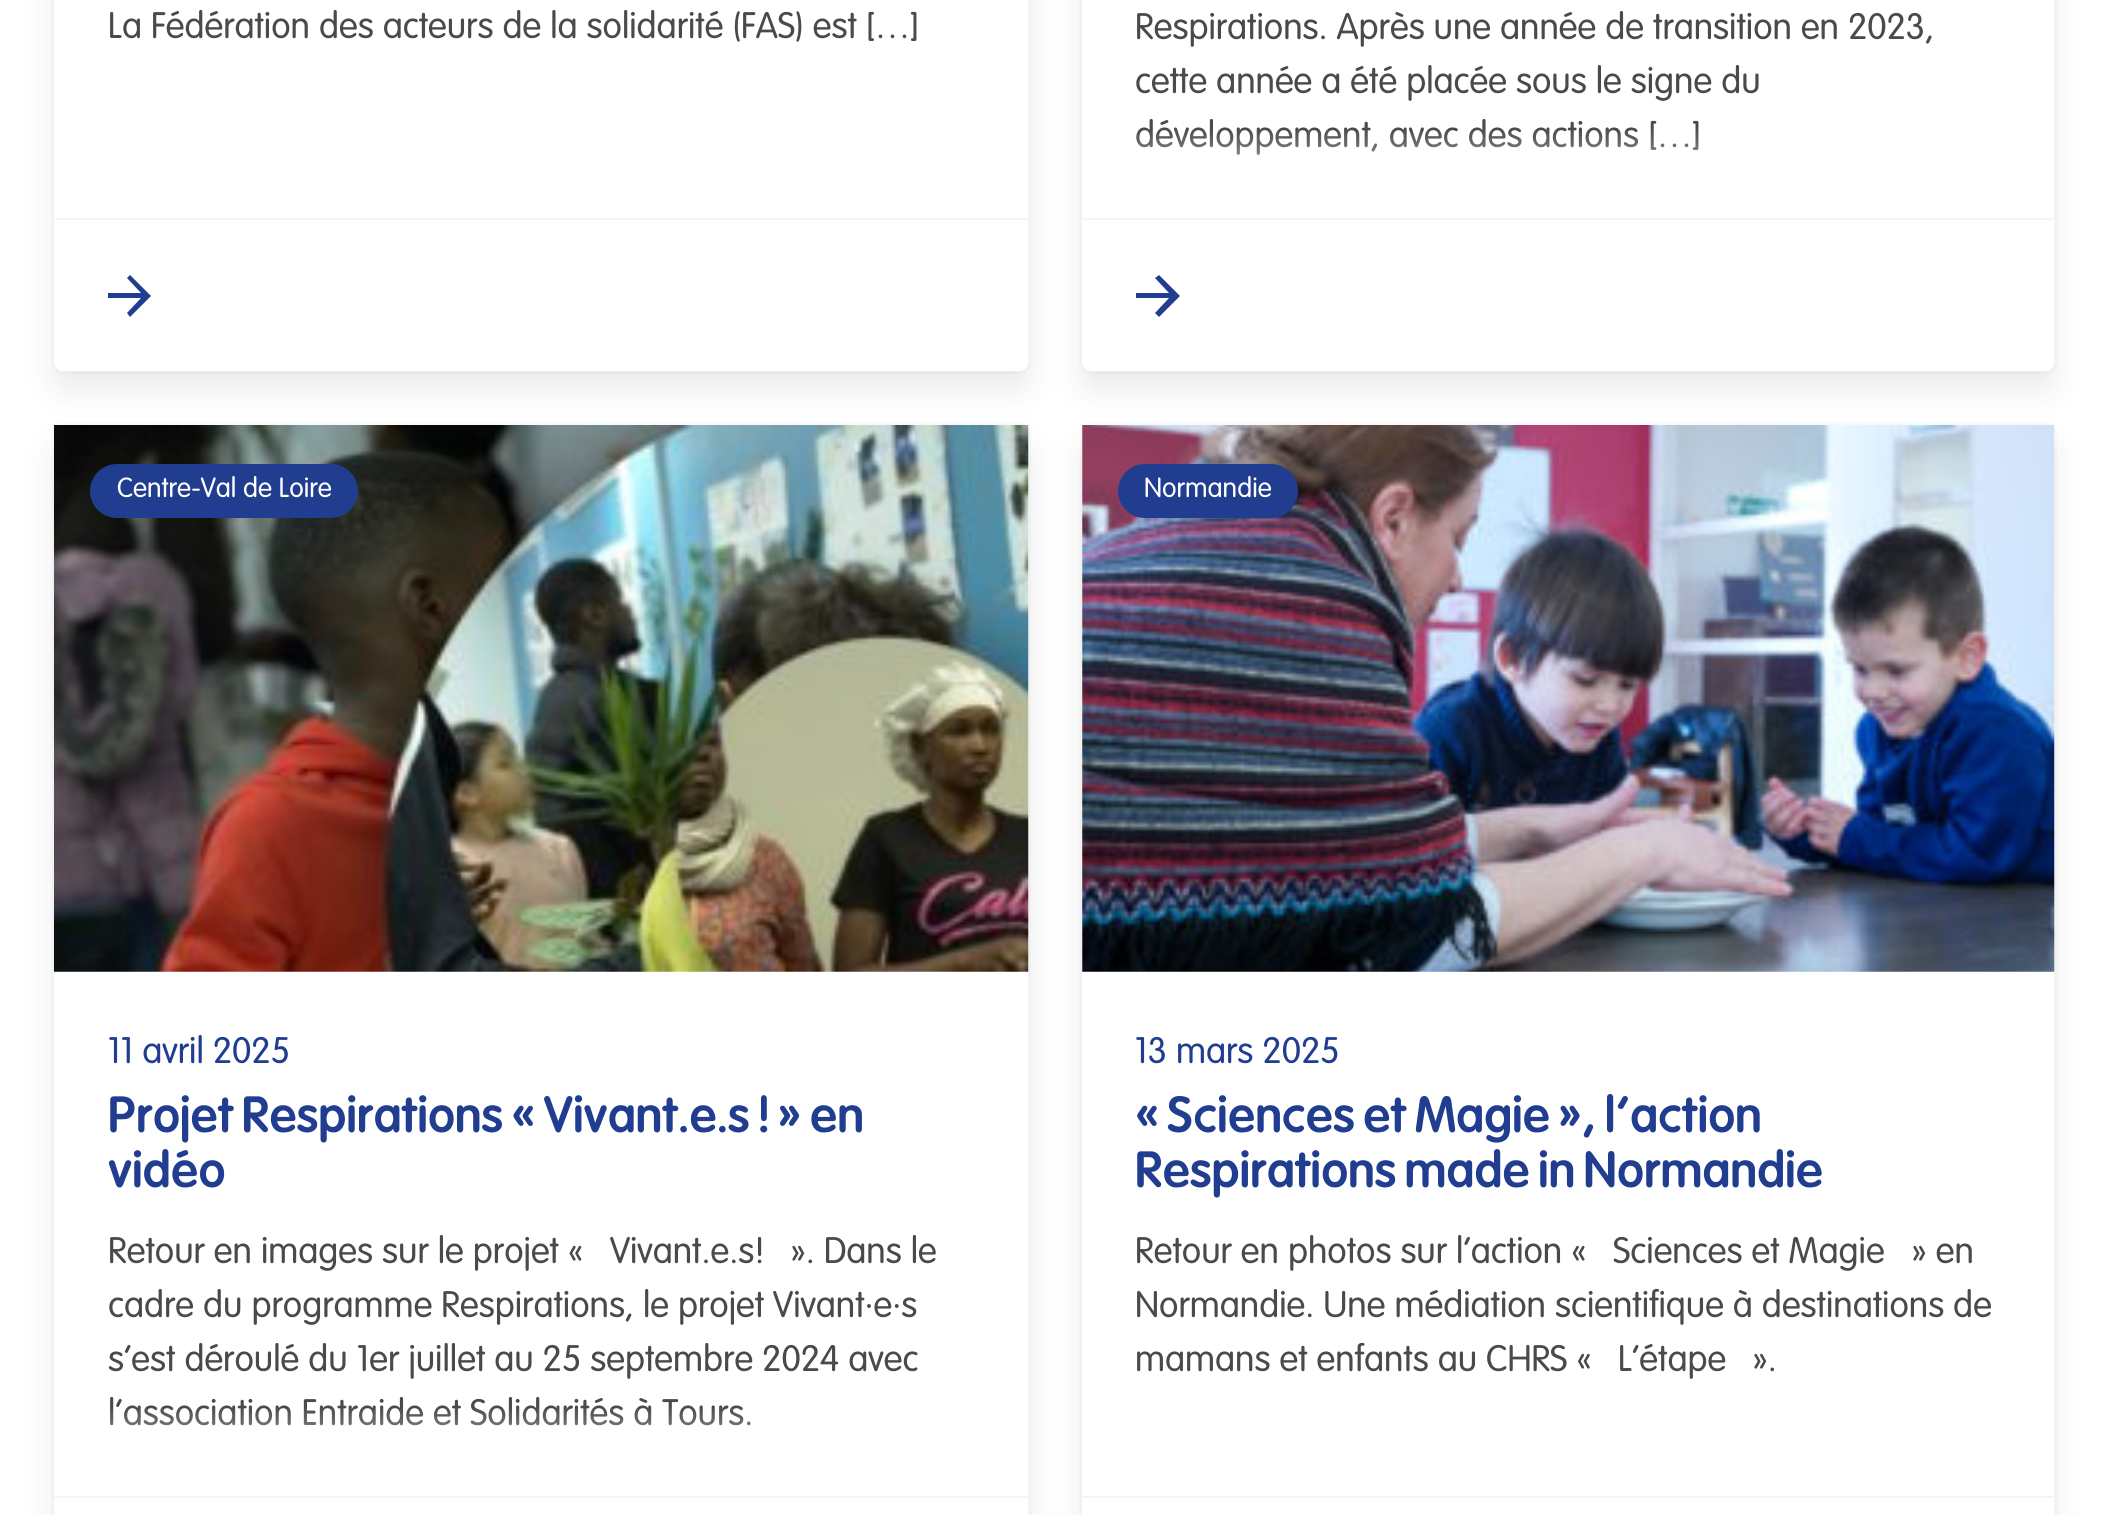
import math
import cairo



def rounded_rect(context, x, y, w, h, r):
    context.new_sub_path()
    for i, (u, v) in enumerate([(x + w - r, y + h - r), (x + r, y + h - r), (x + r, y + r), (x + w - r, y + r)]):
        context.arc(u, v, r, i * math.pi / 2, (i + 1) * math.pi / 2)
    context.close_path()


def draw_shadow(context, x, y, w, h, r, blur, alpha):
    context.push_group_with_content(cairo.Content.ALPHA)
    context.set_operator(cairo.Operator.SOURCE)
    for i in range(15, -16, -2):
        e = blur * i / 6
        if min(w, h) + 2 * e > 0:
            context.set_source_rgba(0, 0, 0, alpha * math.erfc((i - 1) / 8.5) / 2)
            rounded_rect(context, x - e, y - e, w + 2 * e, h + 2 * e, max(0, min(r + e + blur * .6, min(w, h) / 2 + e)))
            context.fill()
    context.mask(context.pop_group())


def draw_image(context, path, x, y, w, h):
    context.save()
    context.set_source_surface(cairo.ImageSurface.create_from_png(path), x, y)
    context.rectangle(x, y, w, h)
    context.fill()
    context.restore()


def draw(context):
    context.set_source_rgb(1, 1, 1)
    context.paint()
    rounded_rect(context, 53, -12, 977, 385, 10)
    context.set_source_rgb(250 / 255, 250 / 255, 250 / 255)
    context.stroke()
    context.set_source_rgb(10 / 255, 10 / 255, 10 / 255)
    draw_shadow(context, 59, -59, 965, 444, 5, 18, 0.1)
    context.set_source_rgb(1, 1, 1)
    rounded_rect(context, 54, -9, 974, 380, 9)
    context.fill()
    context.set_source_rgb(245 / 255, 245 / 255, 245 / 255)
    context.rectangle(54, 218, 974, 2)
    context.fill()
    context.set_source_rgb(33 / 255, 61 / 255, 143 / 255)
    context.new_path()
    context.move_to(141, 293)
    context.line_to(127, 278)
    context.line_to(130, 275)
    context.line_to(151, 296)
    context.line_to(130, 317)
    context.line_to(127, 313)
    context.line_to(141, 298)
    context.line_to(108, 298)
    context.line_to(108, 293)
    context.close_path()
    context.fill()
    rounded_rect(context, 1081, -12, 975, 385, 10)
    context.set_source_rgb(250 / 255, 250 / 255, 250 / 255)
    context.stroke()
    context.set_source_rgb(10 / 255, 10 / 255, 10 / 255)
    draw_shadow(context, 1087, -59, 963, 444, 5, 18, 0.1)
    context.set_source_rgb(1, 1, 1)
    rounded_rect(context, 1082, -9, 972, 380, 9)
    context.fill()
    context.set_source_rgb(245 / 255, 245 / 255, 245 / 255)
    context.rectangle(1082, 218, 972, 2)
    context.fill()
    context.set_source_rgb(33 / 255, 61 / 255, 143 / 255)
    context.new_path()
    context.move_to(1169, 293)
    context.line_to(1155, 278)
    context.line_to(1159, 275)
    context.line_to(1180, 296)
    context.line_to(1159, 317)
    context.line_to(1155, 313)
    context.line_to(1169, 298)
    context.line_to(1136, 298)
    context.line_to(1136, 293)
    context.close_path()
    context.fill()
    rounded_rect(context, 53, 424, 977, 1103, 10)
    context.set_source_rgb(250 / 255, 250 / 255, 250 / 255)
    context.stroke()
    context.set_source_rgb(10 / 255, 10 / 255, 10 / 255)
    draw_shadow(context, 59, 448, 965, 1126, 5, 18, 0.1)
    context.set_source_rgb(1, 1, 1)
    context.rectangle(54, 971, 974, 544)
    context.fill()
    draw_image(context, "images/1.png", 54, 425, 975, 547)
    context.set_source_rgb(33 / 255, 61 / 255, 143 / 255)
    rounded_rect(context, 90, 464, 268, 54, 27)
    context.fill()
    context.set_source_rgb(245 / 255, 245 / 255, 245 / 255)
    context.rectangle(54, 1496, 974, 2)
    context.fill()
    rounded_rect(context, 1081, 424, 975, 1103, 10)
    context.set_source_rgb(250 / 255, 250 / 255, 250 / 255)
    context.stroke()
    context.set_source_rgb(10 / 255, 10 / 255, 10 / 255)
    draw_shadow(context, 1087, 448, 963, 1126, 5, 18, 0.1)
    context.set_source_rgb(1, 1, 1)
    rounded_rect(context, 1082, 425, 972, 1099, 9)
    context.fill()
    draw_image(context, "images/2.png", 1082, 425, 973, 547)
    context.set_source_rgb(33 / 255, 61 / 255, 143 / 255)
    rounded_rect(context, 1118, 464, 180, 54, 27)
    context.fill()
    context.set_source_rgb(245 / 255, 245 / 255, 245 / 255)
    context.rectangle(1082, 1496, 972, 2)
    context.fill()
    context.select_font_face("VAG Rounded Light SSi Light")
    context.set_font_size(36)
    context.set_source_rgb(74 / 255, 74 / 255, 74 / 255)
    context.move_to(108, 38)
    context.show_text("La Fédération des acteurs de la solidarité (FAS) est […]")
    context.move_to(1135, 39)
    context.show_text("Respirations. Après une année de transition en 2023,")
    context.move_to(1135, 93)
    context.show_text("cette année a été placée sous le signe du")
    context.move_to(1135, 147)
    context.show_text("développement, avec des actions […]")
    gradient = cairo.LinearGradient(1568, 218, 1568, 128)
    gradient.add_color_stop_rgba(0, 1, 1, 1, 1)
    gradient.add_color_stop_rgba(1, 1, 1, 1, 0)
    context.set_source(gradient)
    context.rectangle(1136, 130, 563, 25)
    context.fill()
    context.set_font_size(27)
    context.set_source_rgb(1, 1, 1)
    context.move_to(117, 497)
    context.show_text("Centre-Val de Loire")
    context.set_font_size(36)
    context.set_source_rgb(33 / 255, 61 / 255, 143 / 255)
    context.move_to(108, 1063)
    context.show_text("11 avril 2025")
    context.select_font_face("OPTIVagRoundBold", cairo.FontSlant.NORMAL, cairo.FontWeight.BOLD)
    context.set_font_size(48.6)
    context.move_to(108, 1132)
    context.show_text("Projet Respirations « Vivant.e.s ! » en")
    context.move_to(108, 1187)
    context.show_text("vidéo")
    context.select_font_face("VAG Rounded Light SSi Light")
    context.set_font_size(36)
    context.set_source_rgb(74 / 255, 74 / 255, 74 / 255)
    context.move_to(108, 1263)
    context.show_text("Retour en images sur le projet «")
    context.move_to(610, 1263)
    context.show_text("Vivant.e.s!")
    context.move_to(791, 1263)
    context.show_text("». Dans le")
    context.move_to(108, 1317)
    context.show_text("cadre du programme Respirations, le projet Vivant∙e∙s")
    context.move_to(108, 1371)
    context.show_text("s’est déroulé du 1er juillet au 25 septembre 2024 avec")
    context.move_to(108, 1425)
    context.show_text("l’association Entraide et Solidarités à Tours.")
    gradient = cairo.LinearGradient(541, 1496, 541, 1406)
    gradient.add_color_stop_rgba(0, 1, 1, 1, 1)
    gradient.add_color_stop_rgba(1, 1, 1, 1, 0)
    context.set_source(gradient)
    context.rectangle(110, 1408, 641, 18)
    context.fill()
    context.set_font_size(27)
    context.set_source_rgb(1, 1, 1)
    context.move_to(1144, 497)
    context.show_text("Normandie")
    context.set_font_size(36)
    context.set_source_rgb(33 / 255, 61 / 255, 143 / 255)
    context.move_to(1135, 1063)
    context.show_text("13 mars 2025")
    context.select_font_face("OPTIVagRoundBold", cairo.FontSlant.NORMAL, cairo.FontWeight.BOLD)
    context.set_font_size(48.6)
    context.move_to(1135, 1132)
    context.show_text("« Sciences et Magie », l’action")
    context.move_to(1135, 1187)
    context.show_text("Respirations made in Normandie")
    context.select_font_face("VAG Rounded Light SSi Light")
    context.set_font_size(36)
    context.set_source_rgb(74 / 255, 74 / 255, 74 / 255)
    context.move_to(1135, 1263)
    context.show_text("Retour en photos sur l‘action «")
    context.move_to(1613, 1263)
    context.show_text("Sciences et Magie")
    context.move_to(1912, 1263)
    context.show_text("» en")
    context.move_to(1135, 1317)
    context.show_text("Normandie. Une médiation scientifique à destinations de")
    context.move_to(1135, 1371)
    context.show_text("mamans et enfants au CHRS «")
    context.move_to(1618, 1371)
    context.show_text("L’étape")
    context.move_to(1753, 1371)
    context.show_text("».")


surface = cairo.ImageSurface(cairo.Format.RGB24, 2108, 1515)
context = cairo.Context(surface)
options = cairo.FontOptions()
options.set_hint_metrics(cairo.HintMetrics.OFF)
options.set_hint_style(cairo.HintStyle.NONE)
context.set_font_options(options)
context.set_miter_limit(4)
draw(context)
surface.write_to_png("out.png")
